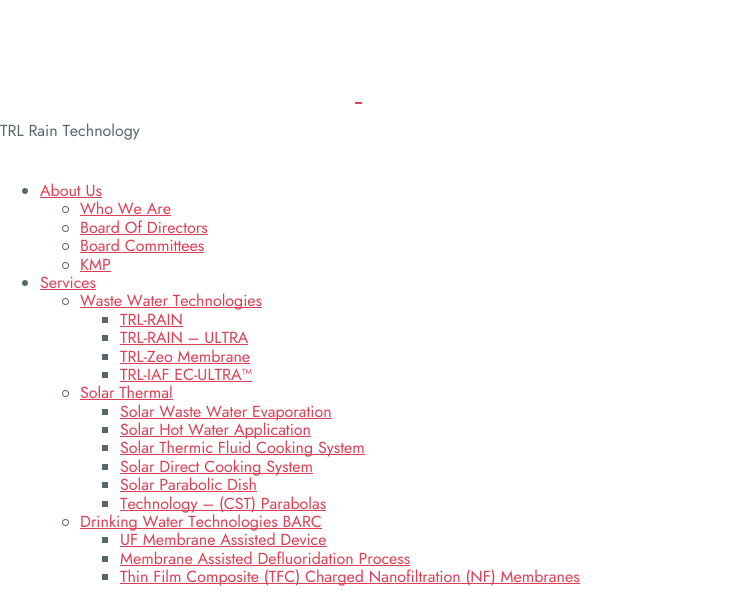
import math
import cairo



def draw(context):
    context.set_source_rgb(1, 1, 1)
    context.paint()
    context.set_source_rgb(216 / 255, 65 / 255, 86 / 255)
    context.rectangle(355, 102, 7, 2)
    context.fill()
    context.set_source_rgb(86 / 255, 103 / 255, 109 / 255)
    context.arc(25, 191, 3, 0, 2 * math.pi)
    context.fill()
    context.set_source_rgb(216 / 255, 65 / 255, 86 / 255)
    context.rectangle(40, 197, 62, 1)
    context.fill()
    context.arc(65.5, 209.5, 3, 0, 2 * math.pi)
    context.set_source_rgb(86 / 255, 103 / 255, 109 / 255)
    context.set_line_width(1)
    context.stroke()
    context.set_source_rgb(216 / 255, 65 / 255, 86 / 255)
    context.rectangle(80, 215, 91, 1)
    context.fill()
    context.arc(65.5, 228.5, 3, 0, 2 * math.pi)
    context.set_source_rgb(86 / 255, 103 / 255, 109 / 255)
    context.stroke()
    context.set_source_rgb(216 / 255, 65 / 255, 86 / 255)
    context.rectangle(80, 234, 128, 1)
    context.fill()
    context.arc(65.5, 246.5, 3, 0, 2 * math.pi)
    context.set_source_rgb(86 / 255, 103 / 255, 109 / 255)
    context.stroke()
    context.set_source_rgb(216 / 255, 65 / 255, 86 / 255)
    context.rectangle(80, 252, 124, 1)
    context.fill()
    context.arc(65.5, 265.5, 3, 0, 2 * math.pi)
    context.set_source_rgb(86 / 255, 103 / 255, 109 / 255)
    context.stroke()
    context.set_source_rgb(216 / 255, 65 / 255, 86 / 255)
    context.rectangle(80, 271, 31, 1)
    context.fill()
    context.set_source_rgb(86 / 255, 103 / 255, 109 / 255)
    context.arc(25, 283, 3, 0, 2 * math.pi)
    context.fill()
    context.set_source_rgb(216 / 255, 65 / 255, 86 / 255)
    context.rectangle(40, 289, 56, 1)
    context.fill()
    context.arc(65.5, 301.5, 3, 0, 2 * math.pi)
    context.set_source_rgb(86 / 255, 103 / 255, 109 / 255)
    context.stroke()
    context.set_source_rgb(216 / 255, 65 / 255, 86 / 255)
    context.rectangle(80, 307, 182, 1)
    context.fill()
    context.set_source_rgb(86 / 255, 103 / 255, 109 / 255)
    context.rectangle(102, 317, 6, 6)
    context.fill()
    context.set_source_rgb(216 / 255, 65 / 255, 86 / 255)
    context.rectangle(120, 326, 63, 1)
    context.fill()
    context.set_source_rgb(86 / 255, 103 / 255, 109 / 255)
    context.rectangle(102, 335, 6, 6)
    context.fill()
    context.set_source_rgb(216 / 255, 65 / 255, 86 / 255)
    context.rectangle(120, 344, 128, 1)
    context.fill()
    context.set_source_rgb(86 / 255, 103 / 255, 109 / 255)
    context.rectangle(102, 354, 6, 6)
    context.fill()
    context.set_source_rgb(216 / 255, 65 / 255, 86 / 255)
    context.rectangle(120, 363, 130, 1)
    context.fill()
    context.set_source_rgb(86 / 255, 103 / 255, 109 / 255)
    context.rectangle(102, 372, 6, 6)
    context.fill()
    context.set_source_rgb(216 / 255, 65 / 255, 86 / 255)
    context.rectangle(120, 381, 132, 1)
    context.fill()
    context.arc(65.5, 393.5, 3, 0, 2 * math.pi)
    context.set_source_rgb(86 / 255, 103 / 255, 109 / 255)
    context.stroke()
    context.set_source_rgb(216 / 255, 65 / 255, 86 / 255)
    context.rectangle(80, 399, 93, 1)
    context.fill()
    context.set_source_rgb(86 / 255, 103 / 255, 109 / 255)
    context.rectangle(102, 409, 6, 6)
    context.fill()
    context.set_source_rgb(216 / 255, 65 / 255, 86 / 255)
    context.rectangle(120, 418, 212, 1)
    context.fill()
    context.set_source_rgb(86 / 255, 103 / 255, 109 / 255)
    context.rectangle(102, 427, 6, 6)
    context.fill()
    context.set_source_rgb(216 / 255, 65 / 255, 86 / 255)
    context.rectangle(120, 436, 191, 1)
    context.fill()
    context.set_source_rgb(86 / 255, 103 / 255, 109 / 255)
    context.rectangle(102, 445, 6, 6)
    context.fill()
    context.set_source_rgb(216 / 255, 65 / 255, 86 / 255)
    context.rectangle(120, 454, 245, 1)
    context.fill()
    context.set_source_rgb(86 / 255, 103 / 255, 109 / 255)
    context.rectangle(102, 464, 6, 6)
    context.fill()
    context.set_source_rgb(216 / 255, 65 / 255, 86 / 255)
    context.rectangle(120, 473, 193, 1)
    context.fill()
    context.set_source_rgb(86 / 255, 103 / 255, 109 / 255)
    context.rectangle(102, 482, 6, 6)
    context.fill()
    context.set_source_rgb(216 / 255, 65 / 255, 86 / 255)
    context.rectangle(120, 491, 137, 1)
    context.fill()
    context.set_source_rgb(86 / 255, 103 / 255, 109 / 255)
    context.rectangle(102, 501, 6, 6)
    context.fill()
    context.set_source_rgb(216 / 255, 65 / 255, 86 / 255)
    context.rectangle(120, 510, 206, 1)
    context.fill()
    context.arc(65.5, 522.5, 3, 0, 2 * math.pi)
    context.set_source_rgb(86 / 255, 103 / 255, 109 / 255)
    context.stroke()
    context.set_source_rgb(216 / 255, 65 / 255, 86 / 255)
    context.rectangle(80, 528, 242, 1)
    context.fill()
    context.set_source_rgb(86 / 255, 103 / 255, 109 / 255)
    context.rectangle(102, 537, 6, 6)
    context.fill()
    context.set_source_rgb(216 / 255, 65 / 255, 86 / 255)
    context.rectangle(120, 546, 207, 1)
    context.fill()
    context.set_source_rgb(86 / 255, 103 / 255, 109 / 255)
    context.rectangle(102, 556, 6, 6)
    context.fill()
    context.set_source_rgb(216 / 255, 65 / 255, 86 / 255)
    context.rectangle(120, 565, 290, 1)
    context.fill()
    context.set_source_rgb(86 / 255, 103 / 255, 109 / 255)
    context.rectangle(102, 574, 6, 6)
    context.fill()
    context.set_source_rgb(216 / 255, 65 / 255, 86 / 255)
    context.rectangle(120, 583, 460, 1)
    context.fill()
    context.select_font_face("Jost")
    context.set_font_size(16)
    context.set_source_rgb(86 / 255, 103 / 255, 109 / 255)
    context.move_to(0, 136)
    context.show_text("TRL Rain Technology")
    context.set_source_rgb(216 / 255, 65 / 255, 86 / 255)
    context.move_to(40, 196)
    context.show_text("About Us")
    context.move_to(80, 214)
    context.show_text("Who We Are")
    context.move_to(80, 233)
    context.show_text("Board Of Directors")
    context.move_to(80, 251)
    context.show_text("Board Committees")
    context.move_to(80, 270)
    context.show_text("KMP")
    context.move_to(40, 288)
    context.show_text("Services")
    context.move_to(80, 306)
    context.show_text("Waste Water Technologies")
    context.move_to(120, 325)
    context.show_text("TRL-RAIN")
    context.move_to(120, 343)
    context.show_text("TRL-RAIN – ULTRA")
    context.move_to(120, 362)
    context.show_text("TRL-Zeo Membrane")
    context.move_to(120, 380)
    context.show_text("TRL-IAF EC-ULTRA™")
    context.move_to(80, 398)
    context.show_text("Solar Thermal")
    context.move_to(120, 417)
    context.show_text("Solar Waste Water Evaporation")
    context.move_to(120, 435)
    context.show_text("Solar Hot Water Application")
    context.move_to(120, 453)
    context.show_text("Solar Thermic Fluid Cooking System")
    context.move_to(120, 472)
    context.show_text("Solar Direct Cooking System")
    context.move_to(120, 490)
    context.show_text("Solar Parabolic Dish")
    context.move_to(120, 509)
    context.show_text("Technology – (CST) Parabolas")
    context.move_to(80, 527)
    context.show_text("Drinking Water Technologies BARC")
    context.move_to(120, 545)
    context.show_text("UF Membrane Assisted Device")
    context.move_to(120, 564)
    context.show_text("Membrane Assisted Defluoridation Process")
    context.move_to(120, 582)
    context.show_text("Thin Film Composite (TFC) Charged Nanofiltration (NF) Membranes")


surface = cairo.ImageSurface(cairo.Format.RGB24, 741, 592)
context = cairo.Context(surface)
options = cairo.FontOptions()
options.set_hint_metrics(cairo.HintMetrics.OFF)
options.set_hint_style(cairo.HintStyle.NONE)
context.set_font_options(options)
context.set_miter_limit(4)
draw(context)
surface.write_to_png("out.png")
